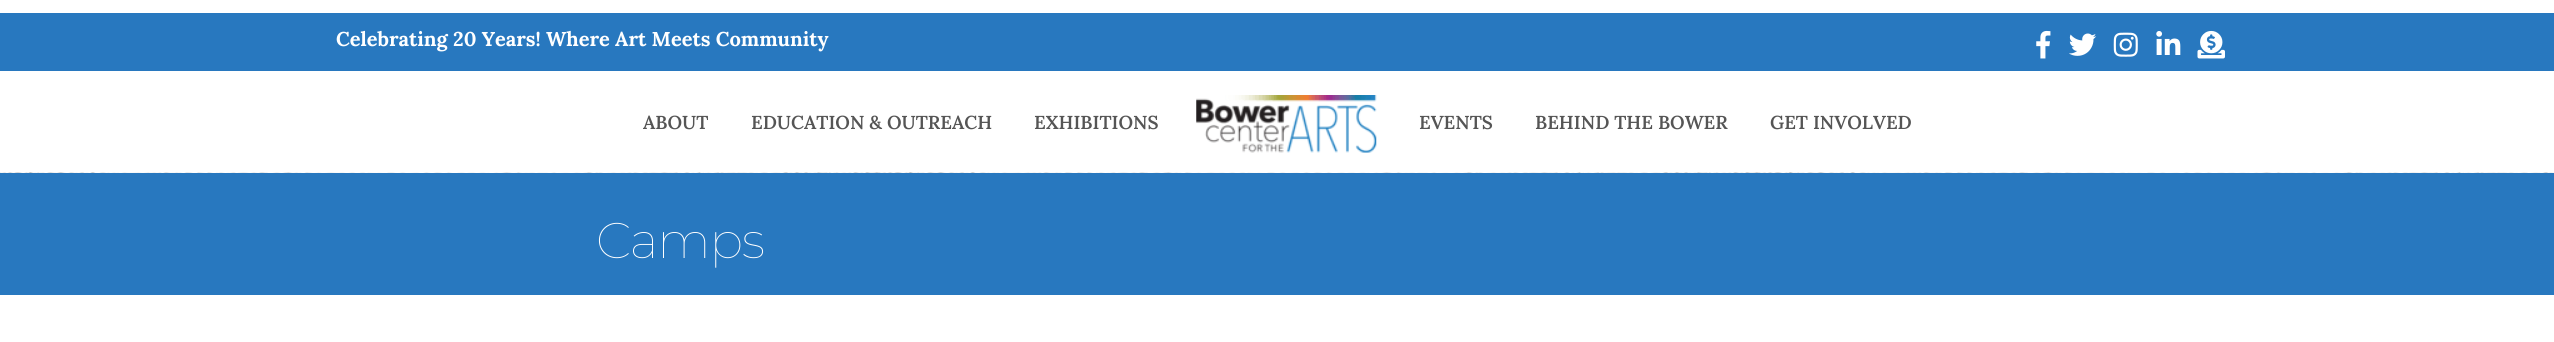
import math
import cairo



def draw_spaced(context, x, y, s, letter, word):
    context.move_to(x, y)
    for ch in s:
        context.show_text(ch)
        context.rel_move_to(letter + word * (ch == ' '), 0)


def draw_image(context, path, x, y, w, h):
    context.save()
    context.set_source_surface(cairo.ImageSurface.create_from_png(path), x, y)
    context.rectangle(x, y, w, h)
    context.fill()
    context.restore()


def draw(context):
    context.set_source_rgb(1, 1, 1)
    context.paint()
    context.set_source_rgb(40 / 255, 120 / 255, 191 / 255)
    context.rectangle(0, 13, 2554, 58)
    context.fill()
    draw_image(context, "images/1.png", 2036, 30, 15, 29)
    draw_image(context, "images/2.png", 2069, 33, 28, 23)
    draw_image(context, "images/3.png", 2113, 32, 25, 25)
    draw_image(context, "images/4.png", 2156, 31, 25, 24)
    draw_image(context, "images/5.png", 2197, 30, 28, 29)
    draw_image(context, "images/6.png", 1196, 95, 181, 58)
    draw_image(context, "images/7.png", 0, 172, 2554, 1)
    context.rectangle(0, 173, 2554, 122)
    context.fill()
    context.select_font_face("Lora", cairo.FontSlant.NORMAL, cairo.FontWeight.BOLD)
    context.set_font_size(20)
    context.set_source_rgb(1, 1, 1)
    context.move_to(336, 46)
    context.show_text("Celebrating 20 Years! Where Art Meets Community")
    context.select_font_face("Lora SemiBold")
    context.set_font_size(18.75)
    context.set_source_rgb(85 / 255, 85 / 255, 85 / 255)
    context.move_to(643, 129)
    context.show_text("ABOUT")
    context.move_to(751, 129)
    context.show_text("EDUCATION & OUTREACH")
    context.move_to(1034, 129)
    context.show_text("EXHIBITIONS")
    context.move_to(1419, 129)
    context.show_text("EVENTS")
    context.move_to(1535, 129)
    context.show_text("BEHIND THE BOWER")
    context.move_to(1770, 129)
    context.show_text("GET INVOLVED")
    context.select_font_face("Montserrat Thin")
    context.set_font_size(50)
    context.set_source_rgb(1, 1, 1)
    draw_spaced(context, 596, 258, "Camps", -1.25, 0)


surface = cairo.ImageSurface(cairo.Format.RGB24, 2554, 342)
context = cairo.Context(surface)
options = cairo.FontOptions()
options.set_hint_metrics(cairo.HintMetrics.OFF)
options.set_hint_style(cairo.HintStyle.NONE)
context.set_font_options(options)
context.set_miter_limit(4)
draw(context)
surface.write_to_png("out.png")
